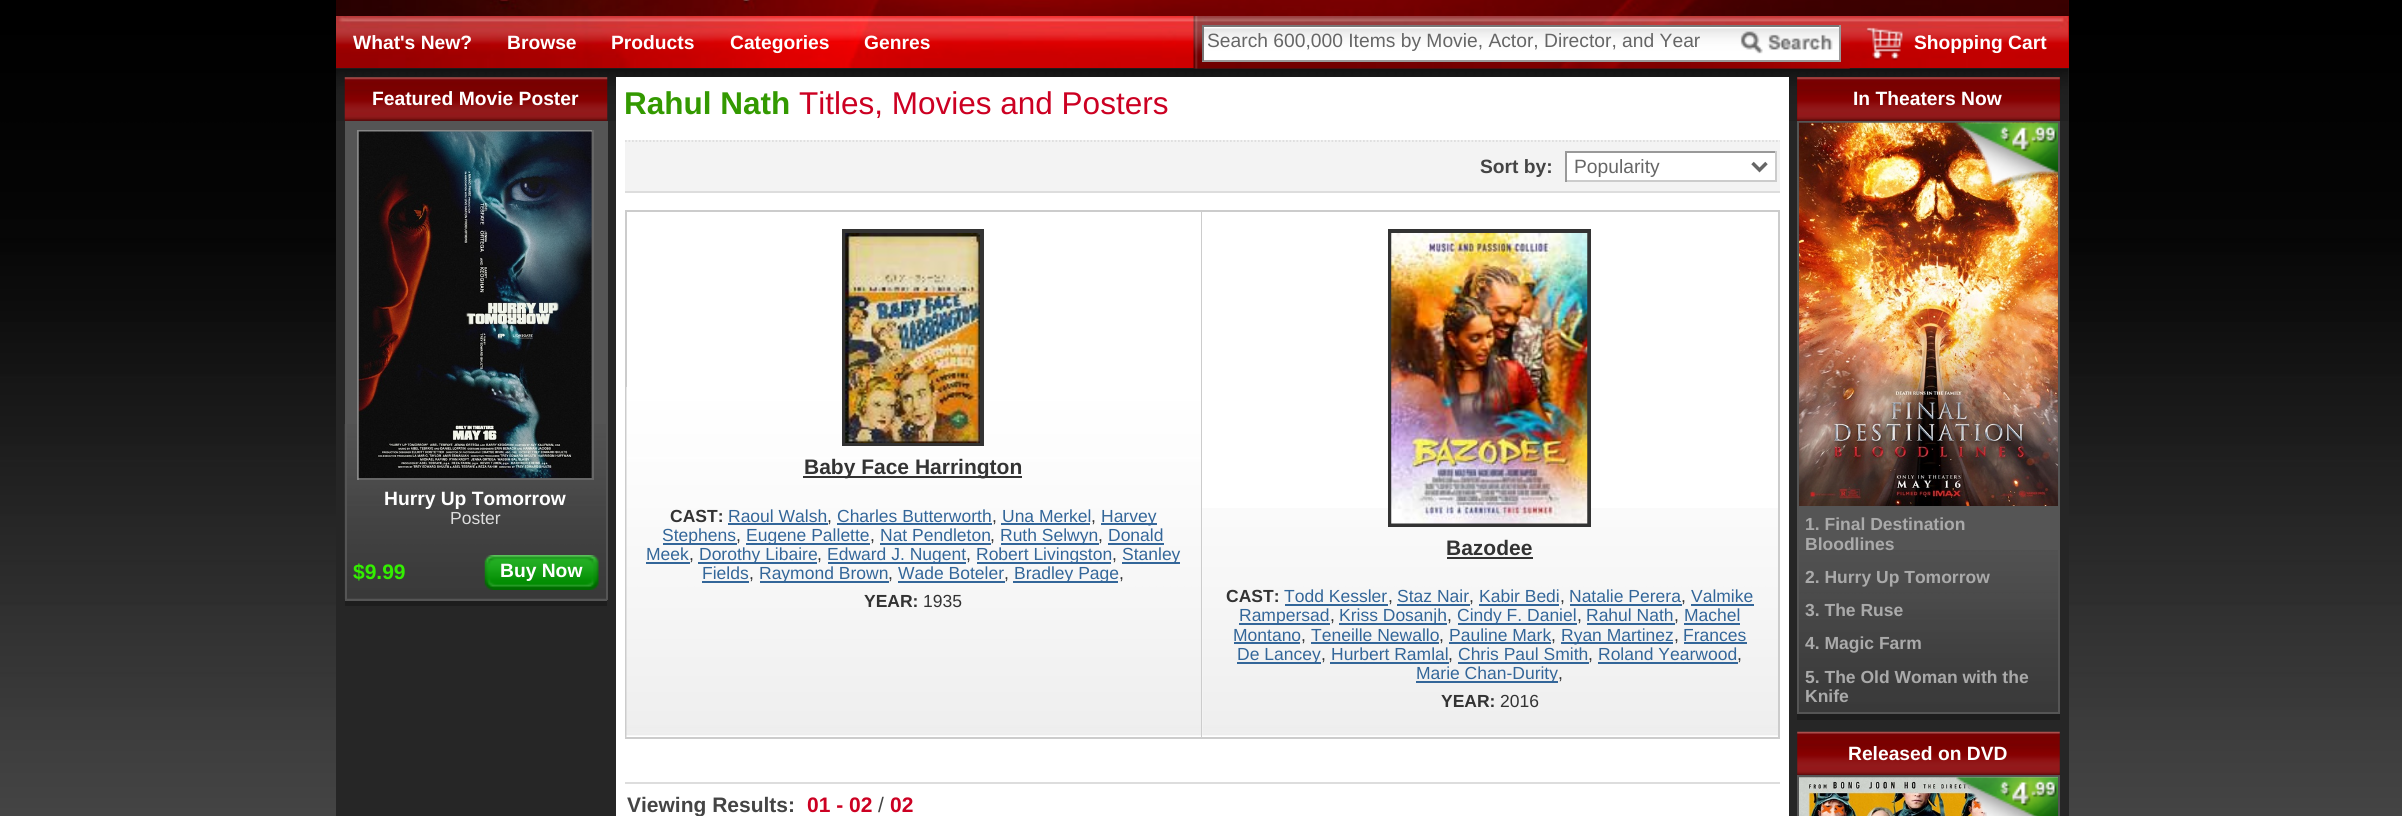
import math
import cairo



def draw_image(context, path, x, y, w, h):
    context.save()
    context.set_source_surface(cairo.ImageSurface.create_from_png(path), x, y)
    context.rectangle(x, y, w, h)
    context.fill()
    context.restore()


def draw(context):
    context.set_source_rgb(1, 1, 1)
    context.paint()
    draw_image(context, "images/1.png", 0, 658, 2402, 158)
    draw_image(context, "images/2.png", 0, 0, 2402, 658)
    context.set_source_rgb(68 / 255, 0, 0)
    context.rectangle(2068, 0, 1, 16)
    context.fill()
    draw_image(context, "images/3.png", 336, 0, 1733, 16)
    context.set_source_rgb(187 / 255, 0, 0)
    context.rectangle(2068, 16, 1, 52)
    context.fill()
    draw_image(context, "images/4.png", 336, 16, 1733, 52)
    context.set_source_rgb(38 / 255, 38 / 255, 38 / 255)
    context.rectangle(336, 68, 1733, 748)
    context.fill()
    draw_image(context, "images/9.png", 336, 68, 1733, 53)
    draw_image(context, "images/5.png", 1193, 16, 657, 53)
    context.set_source_rgb(1, 1, 1)
    context.rectangle(1204, 27, 635, 1)
    context.fill()
    draw_image(context, "images/6.png", 1204, 28, 635, 32)
    context.set_source_rgb(119 / 255, 119 / 255, 119 / 255)
    context.rectangle(1202, 25, 639, 2)
    context.fill()
    context.set_source_rgb(153 / 255, 153 / 255, 153 / 255)
    context.rectangle(1839, 25, 2, 36)
    context.fill()
    context.rectangle(1202, 60, 639, 2)
    context.fill()
    context.set_source_rgb(119 / 255, 119 / 255, 119 / 255)
    context.rectangle(1202, 25, 2, 36)
    context.fill()
    draw_image(context, "images/7.png", 1740, 31, 93, 23)
    draw_image(context, "images/8.png", 1866, 27, 37, 34)
    context.set_source_rgb(29 / 255, 29 / 255, 29 / 255)
    context.rectangle(345, 601, 262, 5)
    context.fill()
    draw_image(context, "images/10.png", 344, 77, 264, 44)
    context.set_source_rgb(85 / 255, 85 / 255, 85 / 255)
    context.rectangle(347, 121, 259, 478)
    context.fill()
    draw_image(context, "images/11.png", 344, 424, 262, 175)
    context.rectangle(606, 121, 2, 479)
    context.fill()
    context.rectangle(345, 599, 262, 2)
    context.fill()
    context.rectangle(345, 121, 2, 479)
    context.fill()
    context.set_source_rgb(136 / 255, 136 / 255, 136 / 255)
    context.rectangle(357, 130, 236, 2)
    context.fill()
    context.set_source_rgb(102 / 255, 102 / 255, 102 / 255)
    context.rectangle(592, 130, 2, 350)
    context.fill()
    context.rectangle(357, 478, 236, 2)
    context.fill()
    context.set_source_rgb(136 / 255, 136 / 255, 136 / 255)
    context.rectangle(357, 130, 2, 350)
    context.fill()
    draw_image(context, "images/12.png", 358, 131, 234, 347)
    draw_image(context, "images/13.png", 484, 555, 115, 35)
    context.set_source_rgb(1, 1, 1)
    context.rectangle(616, 77, 1173, 739)
    context.fill()
    context.set_source_rgb(221 / 255, 221 / 255, 221 / 255)
    context.rectangle(625, 191, 1155, 2)
    context.fill()
    context.set_source_rgb(243 / 255, 243 / 255, 243 / 255)
    context.rectangle(625, 140, 1155, 51)
    context.fill()
    context.new_path()
    context.move_to(625, 141)
    context.line_to(1202, 141)
    context.set_source_rgb(221 / 255, 221 / 255, 221 / 255)
    context.set_line_width(1.8)
    context.set_dash([1.75, 1.75])
    context.stroke()
    context.new_path()
    context.move_to(1202, 141)
    context.line_to(1780, 141)
    context.stroke()
    context.set_source_rgb(1, 1, 1)
    context.rectangle(1567, 153, 208, 27)
    context.fill()
    context.set_source_rgb(153 / 255, 153 / 255, 153 / 255)
    context.rectangle(1565, 151, 211, 2)
    context.fill()
    context.set_source_rgb(204 / 255, 204 / 255, 204 / 255)
    context.rectangle(1775, 151, 2, 31)
    context.fill()
    context.rectangle(1565, 180, 211, 2)
    context.fill()
    context.set_source_rgb(153 / 255, 153 / 255, 153 / 255)
    context.rectangle(1565, 151, 2, 31)
    context.fill()
    context.new_path()
    context.move_to(1752.5, 163)
    context.line_to(1759.5, 170)
    context.line_to(1766.5, 163)
    context.set_source_rgb(102 / 255, 102 / 255, 102 / 255)
    context.set_line_width(3.5)
    context.set_dash([])
    context.stroke()
    context.set_source_rgb(204 / 255, 204 / 255, 204 / 255)
    context.rectangle(625, 210, 1155, 2)
    context.fill()
    context.rectangle(625, 210, 2, 529)
    context.fill()
    draw_image(context, "images/14.png", 626, 387, 575, 350)
    context.rectangle(1201, 212, 1, 527)
    context.fill()
    context.rectangle(627, 737, 575, 2)
    context.fill()
    context.rectangle(844, 231, 138, 213)
    context.set_source_rgb(51 / 255, 51 / 255, 51 / 255)
    context.set_line_width(4)
    context.stroke()
    draw_image(context, "images/15.png", 845, 233, 135, 210)
    context.rectangle(803, 476, 219, 2)
    context.fill()
    context.set_source_rgb(51 / 255, 102 / 255, 153 / 255)
    context.rectangle(728, 523, 100, 2)
    context.fill()
    context.rectangle(837, 523, 155, 2)
    context.fill()
    context.rectangle(1001, 523, 89, 2)
    context.fill()
    context.rectangle(1101, 523, 56, 2)
    context.fill()
    context.rectangle(663, 543, 74, 2)
    context.fill()
    context.rectangle(746, 543, 124, 2)
    context.fill()
    context.rectangle(880, 543, 111, 2)
    context.fill()
    context.rectangle(1001, 543, 98, 2)
    context.fill()
    context.rectangle(1108, 543, 56, 2)
    context.fill()
    context.rectangle(646, 562, 44, 2)
    context.fill()
    context.rectangle(698, 562, 119, 2)
    context.fill()
    context.rectangle(828, 562, 138, 2)
    context.fill()
    context.rectangle(977, 562, 134, 2)
    context.fill()
    context.rectangle(1122, 562, 58, 2)
    context.fill()
    context.rectangle(702, 581, 47, 2)
    context.fill()
    context.rectangle(760, 581, 129, 2)
    context.fill()
    context.rectangle(898, 581, 107, 2)
    context.fill()
    context.rectangle(1013, 581, 105, 2)
    context.fill()
    draw_image(context, "images/16.png", 1202, 508, 576, 228)
    context.set_source_rgb(204 / 255, 204 / 255, 204 / 255)
    context.rectangle(1778, 212, 2, 527)
    context.fill()
    context.rectangle(1202, 737, 578, 2)
    context.fill()
    context.rectangle(1390, 231, 199, 294)
    context.set_source_rgb(51 / 255, 51 / 255, 51 / 255)
    context.stroke()
    draw_image(context, "images/17.png", 1391, 233, 197, 291)
    context.rectangle(1447, 557, 86, 2)
    context.fill()
    context.set_source_rgb(51 / 255, 102 / 255, 153 / 255)
    context.rectangle(1285, 604, 103, 2)
    context.fill()
    context.rectangle(1397, 604, 73, 2)
    context.fill()
    context.rectangle(1479, 604, 80, 2)
    context.fill()
    context.rectangle(1570, 604, 112, 2)
    context.fill()
    context.rectangle(1691, 604, 63, 2)
    context.fill()
    context.rectangle(1239, 623, 91, 2)
    context.fill()
    context.rectangle(1339, 623, 108, 2)
    context.fill()
    context.rectangle(1458, 623, 119, 2)
    context.fill()
    context.rectangle(1587, 623, 88, 2)
    context.fill()
    context.rectangle(1684, 623, 56, 2)
    context.fill()
    context.rectangle(1234, 642, 66, 2)
    context.fill()
    context.rectangle(1311, 642, 128, 2)
    context.fill()
    context.rectangle(1449, 642, 102, 2)
    context.fill()
    context.rectangle(1561, 642, 112, 2)
    context.fill()
    context.rectangle(1684, 642, 63, 2)
    context.fill()
    context.rectangle(1237, 662, 84, 2)
    context.fill()
    context.rectangle(1330, 662, 119, 2)
    context.fill()
    context.rectangle(1458, 662, 131, 2)
    context.fill()
    context.rectangle(1598, 662, 140, 2)
    context.fill()
    context.rectangle(1416, 681, 142, 2)
    context.fill()
    context.set_source_rgb(221 / 255, 221 / 255, 221 / 255)
    context.rectangle(625, 782, 1155, 2)
    context.fill()
    context.set_source_rgb(29 / 255, 29 / 255, 29 / 255)
    context.rectangle(1797, 714, 263, 6)
    context.fill()
    context.set_source_rgb(102 / 255, 0, 0)
    context.rectangle(1797, 77, 263, 44)
    context.fill()
    draw_image(context, "images/18.png", 1797, 77, 263, 44)
    context.set_source_rgb(85 / 255, 85 / 255, 85 / 255)
    context.rectangle(1799, 121, 259, 429)
    context.fill()
    draw_image(context, "images/19.png", 1799, 550, 259, 162)
    context.rectangle(2058, 121, 2, 593)
    context.fill()
    context.rectangle(1797, 712, 263, 2)
    context.fill()
    context.rectangle(1797, 121, 2, 593)
    context.fill()
    draw_image(context, "images/20.png", 1799, 122, 259, 384)
    draw_image(context, "images/21.png", 1954, 122, 104, 67)
    draw_image(context, "images/22.png", 1797, 731, 263, 44)
    context.rectangle(1797, 775, 263, 41)
    context.fill()
    draw_image(context, "images/24.png", 1799, 777, 259, 39)
    draw_image(context, "images/23.png", 1956, 776, 102, 40)
    context.select_font_face("Liberation Sans", cairo.FontSlant.NORMAL, cairo.FontWeight.BOLD)
    context.set_font_size(19.25)
    context.set_source_rgb(1, 1, 1)
    context.move_to(353, 49)
    context.show_text("What's New?")
    context.move_to(507, 49)
    context.show_text("Browse")
    context.move_to(611, 49)
    context.show_text("Products")
    context.move_to(730, 49)
    context.show_text("Categories")
    context.move_to(864, 49)
    context.show_text("Genres")
    context.select_font_face("Liberation Sans")
    context.set_source_rgb(102 / 255, 102 / 255, 102 / 255)
    context.move_to(1207, 47)
    context.show_text("Search 600,000 Items by Movie, Actor, Director, and Year")
    context.select_font_face("Liberation Sans", cairo.FontSlant.NORMAL, cairo.FontWeight.BOLD)
    context.set_source_rgb(1, 1, 1)
    context.move_to(1914, 49)
    context.show_text("Shopping Cart")
    context.move_to(372, 105)
    context.show_text("Featured Movie Poster")
    context.move_to(384, 505)
    context.show_text("Hurry Up Tomorrow")
    context.select_font_face("Liberation Sans")
    context.set_font_size(17.5)
    context.set_source_rgb(221 / 255, 221 / 255, 221 / 255)
    context.move_to(450, 524)
    context.show_text("Poster")
    context.select_font_face("Liberation Sans", cairo.FontSlant.NORMAL, cairo.FontWeight.BOLD)
    context.set_font_size(21)
    context.set_source_rgb(51 / 255, 238 / 255, 0)
    context.move_to(353, 579)
    context.show_text("$9.99")
    context.set_font_size(19.25)
    context.set_source_rgb(1, 1, 1)
    context.move_to(500, 577)
    context.show_text("Buy Now")
    context.set_font_size(31.5)
    context.set_source_rgb(51 / 255, 153 / 255, 0)
    context.move_to(624, 114)
    context.show_text("Rahul Nath")
    context.select_font_face("Liberation Sans")
    context.set_source_rgb(204 / 255, 0, 34 / 255)
    context.move_to(799, 114)
    context.show_text("Titles, Movies and Posters")
    context.select_font_face("Liberation Sans", cairo.FontSlant.NORMAL, cairo.FontWeight.BOLD)
    context.set_font_size(19.25)
    context.set_source_rgb(68 / 255, 68 / 255, 68 / 255)
    context.move_to(1480, 173)
    context.show_text("Sort by:")
    context.select_font_face("Liberation Sans")
    context.set_source_rgb(102 / 255, 102 / 255, 102 / 255)
    context.move_to(1574, 173)
    context.show_text("Popularity")
    context.select_font_face("Liberation Sans", cairo.FontSlant.NORMAL, cairo.FontWeight.BOLD)
    context.set_font_size(21)
    context.set_source_rgb(51 / 255, 51 / 255, 51 / 255)
    context.move_to(804, 474)
    context.show_text("Baby Face Harrington")
    context.set_font_size(17.5)
    context.move_to(670, 522)
    context.show_text("CAST:")
    context.select_font_face("Liberation Sans")
    context.set_source_rgb(51 / 255, 102 / 255, 153 / 255)
    context.move_to(728, 522)
    context.show_text("Raoul Walsh")
    context.set_source_rgb(51 / 255, 51 / 255, 51 / 255)
    context.move_to(827, 522)
    context.show_text(",")
    context.set_source_rgb(51 / 255, 102 / 255, 153 / 255)
    context.move_to(837, 522)
    context.show_text("Charles Butterworth")
    context.set_source_rgb(51 / 255, 51 / 255, 51 / 255)
    context.move_to(992, 522)
    context.show_text(",")
    context.set_source_rgb(51 / 255, 102 / 255, 153 / 255)
    context.move_to(1002, 522)
    context.show_text("Una Merkel")
    context.set_source_rgb(51 / 255, 51 / 255, 51 / 255)
    context.move_to(1091, 522)
    context.show_text(",")
    context.set_source_rgb(51 / 255, 102 / 255, 153 / 255)
    context.move_to(1101, 522)
    context.show_text("Harvey")
    context.move_to(662, 541)
    context.show_text("Stephens")
    context.set_source_rgb(51 / 255, 51 / 255, 51 / 255)
    context.move_to(736, 541)
    context.show_text(",")
    context.set_source_rgb(51 / 255, 102 / 255, 153 / 255)
    context.move_to(746, 541)
    context.show_text("Eugene Pallette")
    context.set_source_rgb(51 / 255, 51 / 255, 51 / 255)
    context.move_to(870, 541)
    context.show_text(",")
    context.set_source_rgb(51 / 255, 102 / 255, 153 / 255)
    context.move_to(880, 541)
    context.show_text("Nat Pendleton")
    context.set_source_rgb(51 / 255, 51 / 255, 51 / 255)
    context.move_to(990, 541)
    context.show_text(",")
    context.set_source_rgb(51 / 255, 102 / 255, 153 / 255)
    context.move_to(1000, 541)
    context.show_text("Ruth Selwyn")
    context.set_source_rgb(51 / 255, 51 / 255, 51 / 255)
    context.move_to(1098, 541)
    context.show_text(",")
    context.set_source_rgb(51 / 255, 102 / 255, 153 / 255)
    context.move_to(1108, 541)
    context.show_text("Donald")
    context.move_to(646, 560)
    context.show_text("Meek")
    context.set_source_rgb(51 / 255, 51 / 255, 51 / 255)
    context.move_to(689, 560)
    context.show_text(",")
    context.set_source_rgb(51 / 255, 102 / 255, 153 / 255)
    context.move_to(699, 560)
    context.show_text("Dorothy Libaire")
    context.set_source_rgb(51 / 255, 51 / 255, 51 / 255)
    context.move_to(817, 560)
    context.show_text(",")
    context.set_source_rgb(51 / 255, 102 / 255, 153 / 255)
    context.move_to(827, 560)
    context.show_text("Edward J. Nugent")
    context.set_source_rgb(51 / 255, 51 / 255, 51 / 255)
    context.move_to(966, 560)
    context.show_text(",")
    context.set_source_rgb(51 / 255, 102 / 255, 153 / 255)
    context.move_to(976, 560)
    context.show_text("Robert Livingston")
    context.set_source_rgb(51 / 255, 51 / 255, 51 / 255)
    context.move_to(1112, 560)
    context.show_text(",")
    context.set_source_rgb(51 / 255, 102 / 255, 153 / 255)
    context.move_to(1122, 560)
    context.show_text("Stanley")
    context.move_to(702, 579)
    context.show_text("Fields")
    context.set_source_rgb(51 / 255, 51 / 255, 51 / 255)
    context.move_to(749, 579)
    context.show_text(",")
    context.set_source_rgb(51 / 255, 102 / 255, 153 / 255)
    context.move_to(759, 579)
    context.show_text("Raymond Brown")
    context.set_source_rgb(51 / 255, 51 / 255, 51 / 255)
    context.move_to(888, 579)
    context.show_text(",")
    context.set_source_rgb(51 / 255, 102 / 255, 153 / 255)
    context.move_to(898, 579)
    context.show_text("Wade Boteler")
    context.set_source_rgb(51 / 255, 51 / 255, 51 / 255)
    context.move_to(1004, 579)
    context.show_text(",")
    context.set_source_rgb(51 / 255, 102 / 255, 153 / 255)
    context.move_to(1014, 579)
    context.show_text("Bradley Page")
    context.set_source_rgb(51 / 255, 51 / 255, 51 / 255)
    context.move_to(1119, 579)
    context.show_text(",")
    context.select_font_face("Liberation Sans", cairo.FontSlant.NORMAL, cairo.FontWeight.BOLD)
    context.move_to(864, 607)
    context.show_text("YEAR:")
    context.select_font_face("Liberation Sans")
    context.move_to(923, 607)
    context.show_text("1935")
    context.select_font_face("Liberation Sans", cairo.FontSlant.NORMAL, cairo.FontWeight.BOLD)
    context.set_font_size(21)
    context.move_to(1446, 555)
    context.show_text("Bazodee")
    context.set_font_size(17.5)
    context.move_to(1226, 602)
    context.show_text("CAST:")
    context.select_font_face("Liberation Sans")
    context.set_source_rgb(51 / 255, 102 / 255, 153 / 255)
    context.move_to(1284, 602)
    context.show_text("Todd Kessler")
    context.set_source_rgb(51 / 255, 51 / 255, 51 / 255)
    context.move_to(1388, 602)
    context.show_text(",")
    context.set_source_rgb(51 / 255, 102 / 255, 153 / 255)
    context.move_to(1397, 602)
    context.show_text("Staz Nair")
    context.set_source_rgb(51 / 255, 51 / 255, 51 / 255)
    context.move_to(1469, 602)
    context.show_text(",")
    context.set_source_rgb(51 / 255, 102 / 255, 153 / 255)
    context.move_to(1479, 602)
    context.show_text("Kabir Bedi")
    context.set_source_rgb(51 / 255, 51 / 255, 51 / 255)
    context.move_to(1560, 602)
    context.show_text(",")
    context.set_source_rgb(51 / 255, 102 / 255, 153 / 255)
    context.move_to(1569, 602)
    context.show_text("Natalie Perera")
    context.set_source_rgb(51 / 255, 51 / 255, 51 / 255)
    context.move_to(1681, 602)
    context.show_text(",")
    context.set_source_rgb(51 / 255, 102 / 255, 153 / 255)
    context.move_to(1691, 602)
    context.show_text("Valmike")
    context.move_to(1239, 621)
    context.show_text("Rampersad")
    context.set_source_rgb(51 / 255, 51 / 255, 51 / 255)
    context.move_to(1330, 621)
    context.show_text(",")
    context.set_source_rgb(51 / 255, 102 / 255, 153 / 255)
    context.move_to(1339, 621)
    context.show_text("Kriss Dosanjh")
    context.set_source_rgb(51 / 255, 51 / 255, 51 / 255)
    context.move_to(1447, 621)
    context.show_text(",")
    context.set_source_rgb(51 / 255, 102 / 255, 153 / 255)
    context.move_to(1457, 621)
    context.show_text("Cindy F. Daniel")
    context.set_source_rgb(51 / 255, 51 / 255, 51 / 255)
    context.move_to(1577, 621)
    context.show_text(",")
    context.set_source_rgb(51 / 255, 102 / 255, 153 / 255)
    context.move_to(1586, 621)
    context.show_text("Rahul Nath")
    context.set_source_rgb(51 / 255, 51 / 255, 51 / 255)
    context.move_to(1674, 621)
    context.show_text(",")
    context.set_source_rgb(51 / 255, 102 / 255, 153 / 255)
    context.move_to(1684, 621)
    context.show_text("Machel")
    context.move_to(1233, 641)
    context.show_text("Montano")
    context.set_source_rgb(51 / 255, 51 / 255, 51 / 255)
    context.move_to(1301, 641)
    context.show_text(",")
    context.set_source_rgb(51 / 255, 102 / 255, 153 / 255)
    context.move_to(1311, 641)
    context.show_text("Teneille Newallo")
    context.set_source_rgb(51 / 255, 51 / 255, 51 / 255)
    context.move_to(1439, 641)
    context.show_text(",")
    context.set_source_rgb(51 / 255, 102 / 255, 153 / 255)
    context.move_to(1449, 641)
    context.show_text("Pauline Mark")
    context.set_source_rgb(51 / 255, 51 / 255, 51 / 255)
    context.move_to(1551, 641)
    context.show_text(",")
    context.set_source_rgb(51 / 255, 102 / 255, 153 / 255)
    context.move_to(1561, 641)
    context.show_text("Ryan Martinez")
    context.set_source_rgb(51 / 255, 51 / 255, 51 / 255)
    context.move_to(1674, 641)
    context.show_text(",")
    context.set_source_rgb(51 / 255, 102 / 255, 153 / 255)
    context.move_to(1683, 641)
    context.show_text("Frances")
    context.move_to(1237, 660)
    context.show_text("De Lancey")
    context.set_source_rgb(51 / 255, 51 / 255, 51 / 255)
    context.move_to(1321, 660)
    context.show_text(",")
    context.set_source_rgb(51 / 255, 102 / 255, 153 / 255)
    context.move_to(1331, 660)
    context.show_text("Hurbert Ramlal")
    context.set_source_rgb(51 / 255, 51 / 255, 51 / 255)
    context.move_to(1448, 660)
    context.show_text(",")
    context.set_source_rgb(51 / 255, 102 / 255, 153 / 255)
    context.move_to(1458, 660)
    context.show_text("Chris Paul Smith")
    context.set_source_rgb(51 / 255, 51 / 255, 51 / 255)
    context.move_to(1588, 660)
    context.show_text(",")
    context.set_source_rgb(51 / 255, 102 / 255, 153 / 255)
    context.move_to(1598, 660)
    context.show_text("Roland Yearwood")
    context.set_source_rgb(51 / 255, 51 / 255, 51 / 255)
    context.move_to(1737, 660)
    context.show_text(",")
    context.set_source_rgb(51 / 255, 102 / 255, 153 / 255)
    context.move_to(1416, 679)
    context.show_text("Marie Chan-Durity")
    context.set_source_rgb(51 / 255, 51 / 255, 51 / 255)
    context.move_to(1558, 679)
    context.show_text(",")
    context.select_font_face("Liberation Sans", cairo.FontSlant.NORMAL, cairo.FontWeight.BOLD)
    context.move_to(1441, 707)
    context.show_text("YEAR:")
    context.select_font_face("Liberation Sans")
    context.move_to(1500, 707)
    context.show_text("2016")
    context.select_font_face("Liberation Sans", cairo.FontSlant.NORMAL, cairo.FontWeight.BOLD)
    context.set_font_size(21)
    context.set_source_rgb(68 / 255, 68 / 255, 68 / 255)
    context.move_to(627, 812)
    context.show_text("Viewing Results:")
    context.set_source_rgb(204 / 255, 0, 34 / 255)
    context.move_to(807, 812)
    context.show_text("01 - 02")
    context.select_font_face("Liberation Sans")
    context.set_source_rgb(68 / 255, 68 / 255, 68 / 255)
    context.move_to(878, 812)
    context.show_text("/")
    context.select_font_face("Liberation Sans", cairo.FontSlant.NORMAL, cairo.FontWeight.BOLD)
    context.set_source_rgb(204 / 255, 0, 34 / 255)
    context.move_to(890, 812)
    context.show_text("02")
    context.set_font_size(19.25)
    context.set_source_rgb(1, 1, 1)
    context.move_to(1853, 105)
    context.show_text("In Theaters Now")
    context.set_font_size(17.5)
    context.set_source_rgb(170 / 255, 170 / 255, 170 / 255)
    context.move_to(1805, 530)
    context.show_text("1. Final Destination")
    context.move_to(1805, 550)
    context.show_text("Bloodlines")
    context.move_to(1805, 583)
    context.show_text("2. Hurry Up Tomorrow")
    context.move_to(1805, 616)
    context.show_text("3. The Ruse")
    context.move_to(1805, 649)
    context.show_text("4. Magic Farm")
    context.move_to(1805, 683)
    context.show_text("5. The Old Woman with the")
    context.move_to(1805, 702)
    context.show_text("Knife")
    context.set_font_size(19.25)
    context.set_source_rgb(1, 1, 1)
    context.move_to(1848, 760)
    context.show_text("Released on DVD")


surface = cairo.ImageSurface(cairo.Format.RGB24, 2402, 816)
context = cairo.Context(surface)
options = cairo.FontOptions()
options.set_hint_metrics(cairo.HintMetrics.OFF)
options.set_hint_style(cairo.HintStyle.NONE)
context.set_font_options(options)
context.set_miter_limit(4)
draw(context)
surface.write_to_png("out.png")
